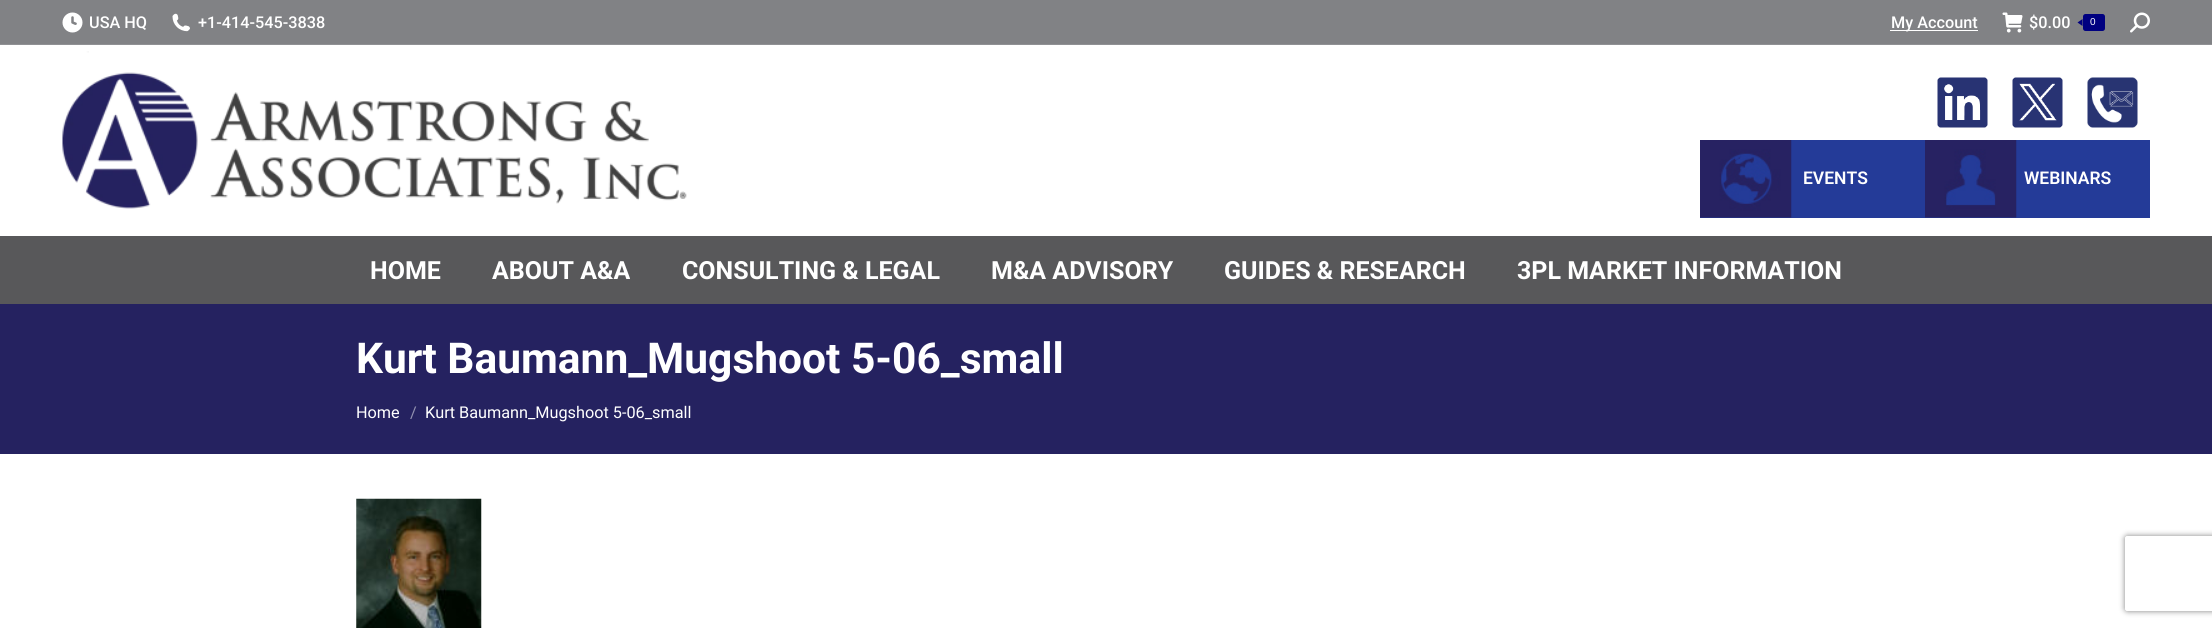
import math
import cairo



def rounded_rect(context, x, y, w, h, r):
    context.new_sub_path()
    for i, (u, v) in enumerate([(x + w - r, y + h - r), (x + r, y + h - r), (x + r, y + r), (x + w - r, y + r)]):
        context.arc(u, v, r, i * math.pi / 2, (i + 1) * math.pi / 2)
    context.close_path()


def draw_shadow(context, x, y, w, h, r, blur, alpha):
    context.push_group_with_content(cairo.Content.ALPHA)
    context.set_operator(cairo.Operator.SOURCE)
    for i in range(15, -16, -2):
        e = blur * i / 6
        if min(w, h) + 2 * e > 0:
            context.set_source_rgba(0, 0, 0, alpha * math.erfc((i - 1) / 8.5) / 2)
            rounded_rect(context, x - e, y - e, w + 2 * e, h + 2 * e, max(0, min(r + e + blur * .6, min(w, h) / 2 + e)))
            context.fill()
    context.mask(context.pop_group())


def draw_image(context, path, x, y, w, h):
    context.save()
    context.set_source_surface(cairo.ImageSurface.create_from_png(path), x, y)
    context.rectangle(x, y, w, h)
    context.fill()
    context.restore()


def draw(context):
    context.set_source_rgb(1, 1, 1)
    context.paint()
    context.set_source_rgb(129 / 255, 130 / 255, 133 / 255)
    context.rectangle(0, 0, 2212, 44)
    context.fill()
    draw_image(context, "images/1.png", 62, 12, 21, 21)
    draw_image(context, "images/2.png", 172, 13, 18, 19)
    context.set_source_rgb(1, 1, 1)
    context.rectangle(1890, 30, 88, 1)
    context.fill()
    draw_image(context, "images/3.png", 2002, 12, 21, 21)
    context.set_source_rgb(0, 0, 128 / 255)
    rounded_rect(context, 2083, 14, 22, 17, 2.5)
    context.fill()
    context.new_path()
    context.move_to(2082.5, 19)
    context.line_to(2082.5, 26)
    context.line_to(2077.5, 22.5)
    context.close_path()
    context.fill()
    draw_image(context, "images/4.png", 2130, 12, 20, 21)
    context.set_source_rgb(144 / 255, 145 / 255, 148 / 255)
    context.rectangle(0, 44, 2212, 1)
    context.fill()
    draw_image(context, "images/5.png", 62, 51, 625, 158)
    draw_image(context, "images/6.png", 1937, 77, 51, 51)
    draw_image(context, "images/7.png", 2012, 77, 51, 51)
    draw_image(context, "images/8.png", 2087, 77, 51, 51)
    context.set_source_rgb(36 / 255, 59 / 255, 152 / 255)
    context.rectangle(1700, 140, 450, 78)
    context.fill()
    draw_image(context, "images/9.png", 1700, 140, 92, 78)
    draw_image(context, "images/10.png", 1925, 140, 92, 78)
    context.set_source_rgb(88 / 255, 88 / 255, 90 / 255)
    context.rectangle(0, 236, 2212, 68)
    context.fill()
    context.set_source_rgb(37 / 255, 34 / 255, 96 / 255)
    context.rectangle(0, 304, 2212, 150)
    context.fill()
    draw_image(context, "images/11.png", 356, 498, 126, 130)
    context.save()
    context.set_fill_rule(cairo.FillRule.EVEN_ODD)
    context.new_path()
    context.move_to(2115, 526)
    context.line_to(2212, 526)
    context.line_to(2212, 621)
    context.line_to(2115, 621)
    context.close_path()
    context.move_to(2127.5, 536)
    context.line_to(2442.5, 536)
    context.curve_to(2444, 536, 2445, 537, 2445, 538.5)
    context.line_to(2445, 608.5)
    context.curve_to(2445, 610, 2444, 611, 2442.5, 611)
    context.line_to(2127.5, 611)
    context.curve_to(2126, 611, 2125, 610, 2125, 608.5)
    context.line_to(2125, 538.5)
    context.curve_to(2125, 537, 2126, 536, 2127.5, 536)
    context.close_path()
    context.clip()
    context.set_source_rgb(128 / 255, 128 / 255, 128 / 255)
    draw_shadow(context, 2125, 536, 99, 75, 2.5, 3, 1)
    context.restore()
    context.select_font_face("Roboto Medium")
    context.set_font_size(16.25)
    context.set_source_rgb(1, 1, 1)
    context.move_to(89, 28)
    context.show_text("USA HQ")
    context.move_to(198, 28)
    context.show_text("+1-414-545-3838")
    context.move_to(1891, 28)
    context.show_text("My Account")
    context.move_to(2029, 28)
    context.show_text("$0.00")
    context.select_font_face("Liberation Sans")
    context.set_font_size(10)
    context.move_to(2090, 25)
    context.show_text("0")
    context.select_font_face("Roboto SemiBold")
    context.set_font_size(17.5)
    context.move_to(1803, 184)
    context.show_text("EVENTS")
    context.move_to(2024, 184)
    context.show_text("WEBINARS")
    context.select_font_face("Roboto", cairo.FontSlant.NORMAL, cairo.FontWeight.BOLD)
    context.set_font_size(25)
    context.move_to(370, 279)
    context.show_text("HOME")
    context.move_to(492, 279)
    context.show_text("ABOUT A&A")
    context.move_to(682, 279)
    context.show_text("CONSULTING & LEGAL")
    context.move_to(991, 279)
    context.show_text("M&A ADVISORY")
    context.move_to(1224, 279)
    context.show_text("GUIDES & RESEARCH")
    context.move_to(1517, 279)
    context.show_text("3PL MARKET INFORMATION")
    context.set_font_size(42.5)
    context.move_to(356, 373)
    context.show_text("Kurt Baumann_Mugshoot 5-06_small")
    context.select_font_face("Roboto")
    context.set_font_size(16.25)
    context.move_to(356, 418)
    context.show_text("Home")
    context.set_source_rgb(146 / 255, 145 / 255, 176 / 255)
    context.move_to(410, 418)
    context.show_text("/")
    context.set_source_rgb(1, 1, 1)
    context.move_to(425, 418)
    context.show_text("Kurt Baumann_Mugshoot 5-06_small")


surface = cairo.ImageSurface(cairo.Format.RGB24, 2212, 628)
context = cairo.Context(surface)
options = cairo.FontOptions()
options.set_hint_metrics(cairo.HintMetrics.OFF)
options.set_hint_style(cairo.HintStyle.NONE)
context.set_font_options(options)
context.set_miter_limit(4)
draw(context)
surface.write_to_png("out.png")
